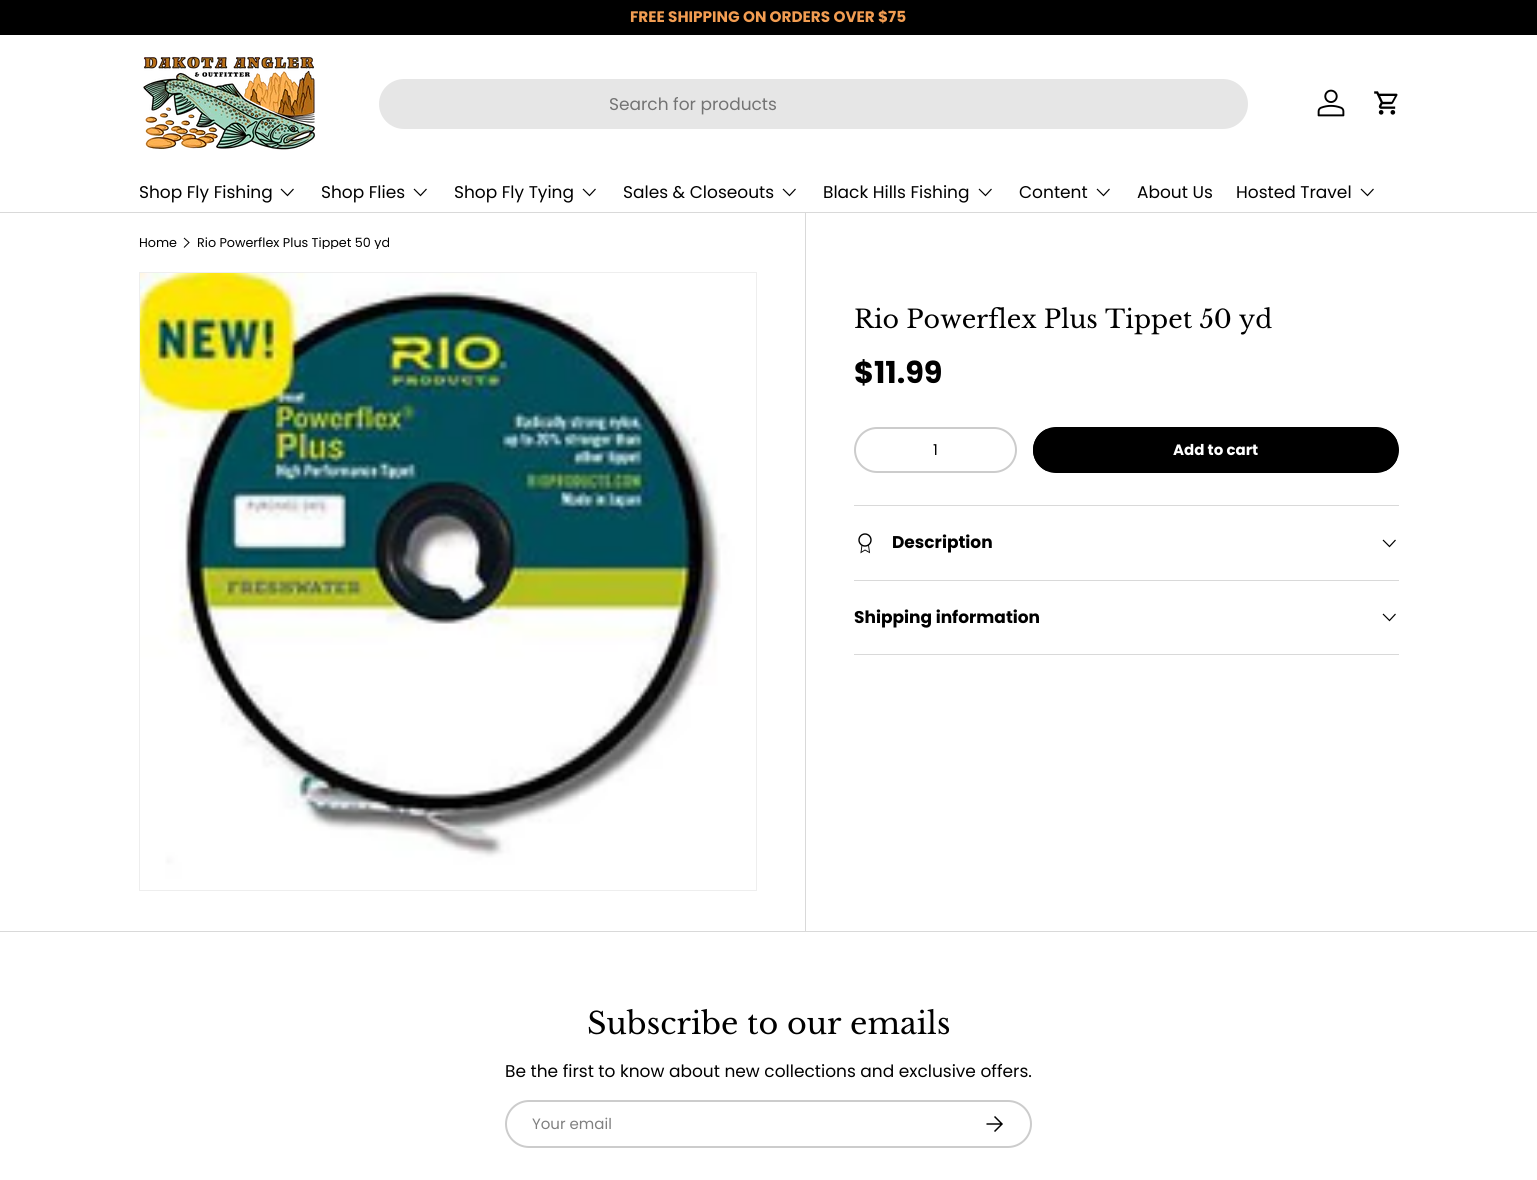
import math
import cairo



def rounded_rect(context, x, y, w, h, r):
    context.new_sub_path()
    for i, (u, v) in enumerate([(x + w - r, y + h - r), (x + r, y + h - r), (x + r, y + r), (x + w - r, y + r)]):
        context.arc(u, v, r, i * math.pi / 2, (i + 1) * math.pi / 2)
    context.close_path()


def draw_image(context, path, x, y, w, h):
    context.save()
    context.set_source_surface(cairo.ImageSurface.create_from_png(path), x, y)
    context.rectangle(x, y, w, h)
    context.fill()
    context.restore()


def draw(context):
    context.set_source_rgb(1, 1, 1)
    context.paint()
    context.set_source_rgb(0, 0, 0)
    context.rectangle(0, 0, 1537, 35)
    context.fill()
    context.set_source_rgb(217 / 255, 217 / 255, 217 / 255)
    context.rectangle(0, 212, 1537, 1)
    context.fill()
    draw_image(context, "images/1.png", 143, 56, 173, 94)
    context.set_source_rgb(230 / 255, 230 / 255, 230 / 255)
    rounded_rect(context, 379, 79, 869, 50, 25)
    context.fill()
    draw_image(context, "images/2.png", 1317, 89, 28, 28)
    draw_image(context, "images/3.png", 1374, 91, 24, 24)
    context.new_path()
    context.move_to(293.5, 189)
    context.line_to(287.5, 195.5)
    context.line_to(281, 189)
    context.set_source_rgb(0, 0, 0)
    context.set_line_width(1.2)
    context.stroke()
    context.new_path()
    context.move_to(426.5, 189)
    context.line_to(420.5, 195.5)
    context.line_to(414, 189)
    context.stroke()
    context.new_path()
    context.move_to(595.5, 189)
    context.line_to(589.5, 195.5)
    context.line_to(583, 189)
    context.stroke()
    context.new_path()
    context.move_to(795.5, 189)
    context.line_to(789.5, 195.5)
    context.line_to(783, 189)
    context.stroke()
    context.new_path()
    context.move_to(991.5, 189)
    context.line_to(985.5, 195.5)
    context.line_to(979, 189)
    context.stroke()
    context.new_path()
    context.move_to(1109.5, 189)
    context.line_to(1103.5, 195.5)
    context.line_to(1097, 189)
    context.stroke()
    context.new_path()
    context.move_to(1373.5, 189)
    context.line_to(1367.5, 195.5)
    context.line_to(1361, 189)
    context.stroke()
    context.new_path()
    context.move_to(184, 238)
    context.line_to(189, 242.5)
    context.line_to(184, 247.5)
    context.set_line_width(1)
    context.stroke()
    context.set_source_rgb(217 / 255, 217 / 255, 217 / 255)
    context.rectangle(805, 213, 1, 718)
    context.fill()
    context.rectangle(139.5, 272.5, 617, 618)
    context.set_source_rgb(238 / 255, 238 / 255, 238 / 255)
    context.stroke()
    draw_image(context, "images/4.png", 140, 273, 616, 617)
    rounded_rect(context, 855, 428, 161, 44, 22)
    context.set_source_rgb(204 / 255, 204 / 255, 204 / 255)
    context.set_line_width(2)
    context.stroke()
    context.save()
    rounded_rect(context, 1033, 427, 366, 46, 23)
    context.clip()
    gradient = cairo.LinearGradient(338, 321, 1370, 579)
    gradient.add_color_stop_rgba(0.6, 46 / 255, 46 / 255, 46 / 255, 1)
    gradient.add_color_stop_rgba(0.6, 0, 0, 0, 1)
    gradient.add_color_stop_rgba(1, 0, 0, 0, 1)
    context.set_source(gradient)
    context.rectangle(1033, 429, 364, 42)
    context.fill()
    context.restore()
    rounded_rect(context, 1034, 428, 364, 44, 22)
    context.set_source_rgb(0, 0, 0)
    context.stroke()
    context.set_source_rgb(217 / 255, 217 / 255, 217 / 255)
    context.rectangle(854, 505, 545, 1)
    context.fill()
    context.rectangle(854, 580, 545, 1)
    context.fill()
    context.arc(865, 540, 6, 0, 2 * math.pi)
    context.set_source_rgb(0, 0, 0)
    context.set_line_width(1.4)
    context.stroke()
    context.new_path()
    context.move_to(862, 545)
    context.line_to(861, 552.5)
    context.line_to(865, 550)
    context.line_to(869.5, 552.5)
    context.line_to(868.5, 545)
    context.set_line_width(0.9)
    context.stroke()
    context.new_path()
    context.move_to(1395.5, 540)
    context.line_to(1389.5, 546.5)
    context.line_to(1383, 540)
    context.set_line_width(1.2)
    context.stroke()
    context.set_source_rgb(217 / 255, 217 / 255, 217 / 255)
    context.rectangle(854, 654, 545, 1)
    context.fill()
    context.new_path()
    context.move_to(1395.5, 614)
    context.line_to(1389.5, 620.5)
    context.line_to(1383, 614)
    context.set_source_rgb(0, 0, 0)
    context.stroke()
    context.set_source_rgb(217 / 255, 217 / 255, 217 / 255)
    context.rectangle(0, 931, 1537, 1)
    context.fill()
    rounded_rect(context, 506, 1101, 525, 46, 23)
    context.set_source_rgb(204 / 255, 204 / 255, 204 / 255)
    context.set_line_width(2)
    context.stroke()
    context.new_path()
    context.move_to(986.5, 1124)
    context.line_to(1001.5, 1124)
    context.move_to(994.5, 1116.5)
    context.line_to(1002, 1124)
    context.line_to(994.5, 1131.5)
    context.set_source_rgb(0, 0, 0)
    context.set_line_width(1.5)
    context.stroke()
    context.select_font_face("Poppins", cairo.FontSlant.NORMAL, cairo.FontWeight.BOLD)
    context.set_font_size(15.25)
    context.set_source_rgb(242 / 255, 157 / 255, 82 / 255)
    context.move_to(630, 22)
    context.show_text("FREE SHIPPING ON ORDERS OVER $75")
    context.select_font_face("Poppins")
    context.set_font_size(17)
    context.set_source_rgb(115 / 255, 115 / 255, 115 / 255)
    context.move_to(609, 110)
    context.show_text("Search for products")
    context.set_source_rgb(0, 0, 0)
    context.move_to(139, 198)
    context.show_text("Shop Fly Fishing")
    context.move_to(321, 198)
    context.show_text("Shop Flies")
    context.move_to(454, 198)
    context.show_text("Shop Fly Tying")
    context.move_to(623, 198)
    context.show_text("Sales & Closeouts")
    context.move_to(823, 198)
    context.show_text("Black Hills Fishing")
    context.move_to(1019, 198)
    context.show_text("Content")
    context.move_to(1137, 198)
    context.show_text("About Us")
    context.move_to(1236, 198)
    context.show_text("Hosted Travel")
    context.set_font_size(12.75)
    context.move_to(139, 247)
    context.show_text("Home")
    context.save()
    context.rectangle(197, 237, 193, 12)
    context.clip()
    context.move_to(197, 247)
    context.show_text("Rio Powerflex Plus Tippet 50 yd")
    context.restore()
    context.select_font_face("Libre Baskerville")
    context.set_font_size(25.25)
    context.move_to(854, 328)
    context.show_text("Rio Powerflex Plus Tippet 50 yd")
    context.select_font_face("Poppins", cairo.FontSlant.NORMAL, cairo.FontWeight.BOLD)
    context.set_font_size(30.25)
    context.move_to(854, 383)
    context.show_text("$11.99")
    context.select_font_face("Poppins")
    context.set_font_size(15)
    context.move_to(933, 455)
    context.show_text("1")
    context.select_font_face("Poppins", cairo.FontSlant.NORMAL, cairo.FontWeight.BOLD)
    context.set_source_rgb(1, 1, 1)
    context.move_to(1173, 455)
    context.show_text("Add to cart")
    context.set_font_size(17)
    context.set_source_rgb(0, 0, 0)
    context.move_to(892, 548)
    context.show_text("Description")
    context.move_to(854, 623)
    context.show_text("Shipping information")
    context.select_font_face("Libre Baskerville")
    context.set_font_size(30.25)
    context.move_to(587, 1034)
    context.show_text("Subscribe to our emails")
    context.select_font_face("Poppins")
    context.set_font_size(17)
    context.move_to(505, 1077)
    context.show_text("Be the first to know about new collections and exclusive offers.")
    context.set_font_size(15)
    context.set_source_rgb(128 / 255, 128 / 255, 128 / 255)
    context.move_to(532, 1129)
    context.show_text("Your email")


surface = cairo.ImageSurface(cairo.Format.RGB24, 1537, 1180)
context = cairo.Context(surface)
options = cairo.FontOptions()
options.set_hint_metrics(cairo.HintMetrics.OFF)
options.set_hint_style(cairo.HintStyle.NONE)
context.set_font_options(options)
context.set_miter_limit(4)
draw(context)
surface.write_to_png("out.png")
